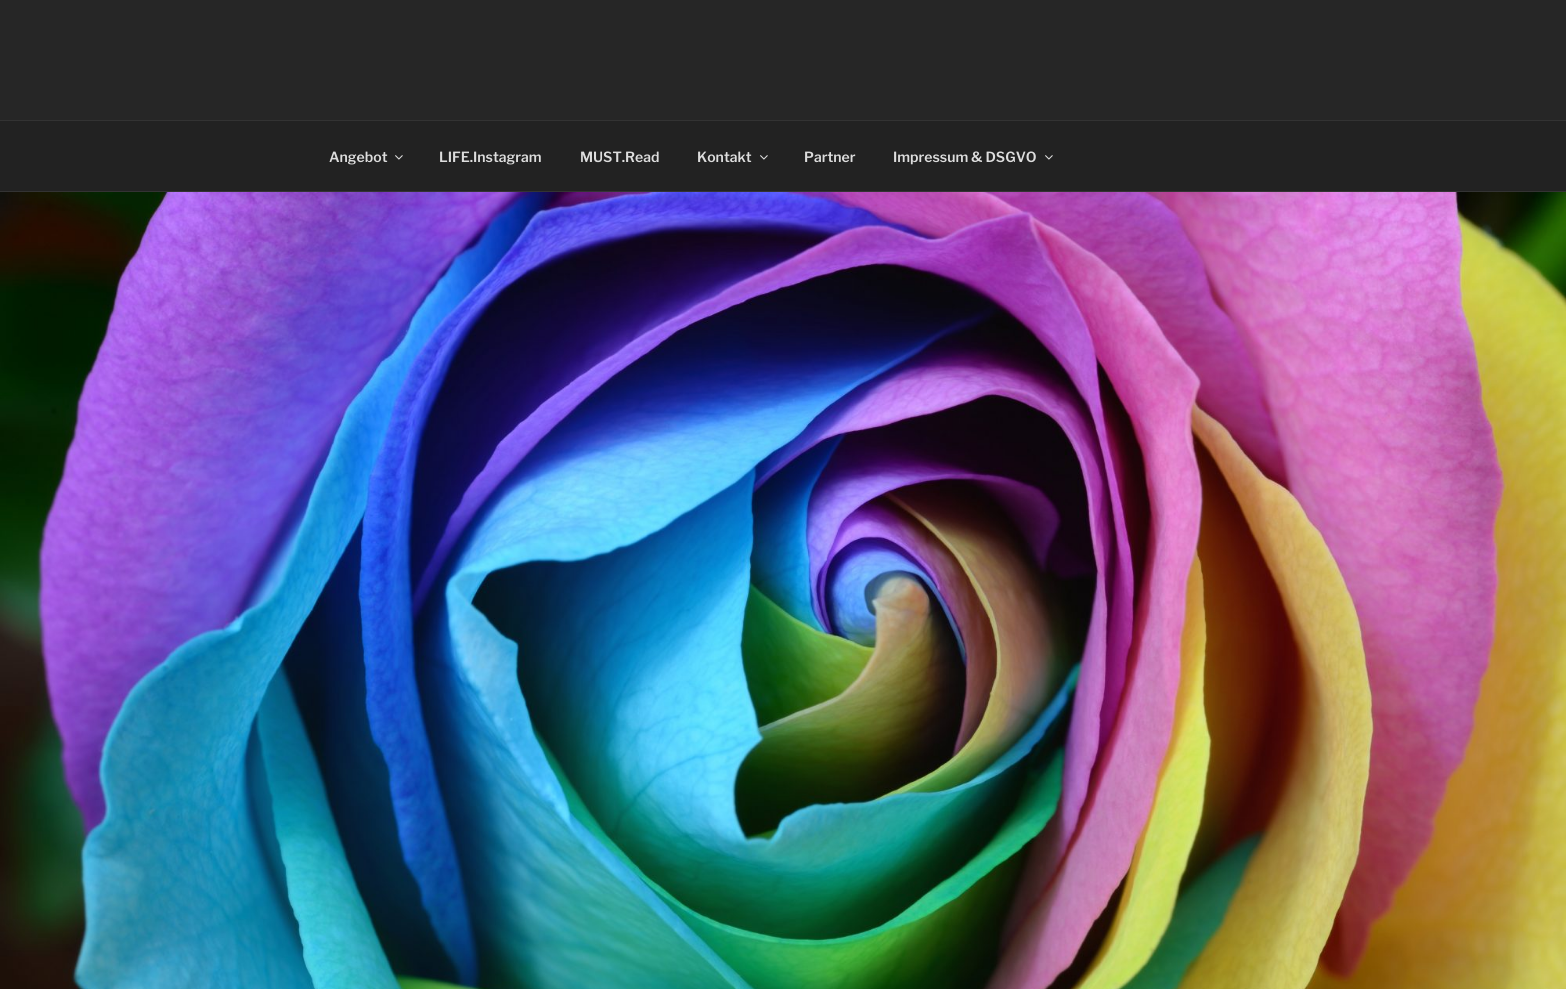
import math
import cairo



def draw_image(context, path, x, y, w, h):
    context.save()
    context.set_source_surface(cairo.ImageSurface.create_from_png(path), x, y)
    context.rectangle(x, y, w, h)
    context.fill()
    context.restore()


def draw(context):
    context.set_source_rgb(1, 1, 1)
    context.paint()
    context.set_source_rgb(38 / 255, 38 / 255, 38 / 255)
    context.rectangle(0, 0, 1566, 120)
    context.fill()
    context.set_source_rgb(34 / 255, 34 / 255, 34 / 255)
    context.rectangle(0, 121, 1566, 70)
    context.fill()
    context.set_source_rgb(51 / 255, 51 / 255, 51 / 255)
    context.rectangle(0, 120, 1566, 1)
    context.fill()
    context.rectangle(0, 191, 1566, 1)
    context.fill()
    draw_image(context, "images/1.png", 395, 155, 8, 5)
    draw_image(context, "images/1.png", 760, 155, 8, 5)
    draw_image(context, "images/1.png", 1045, 155, 8, 5)
    draw_image(context, "images/2.png", 0, 192, 1566, 797)
    context.select_font_face("Libre Franklin Thin")
    context.set_font_size(14)
    context.set_source_rgb(221 / 255, 221 / 255, 221 / 255)
    context.move_to(329, 162)
    context.show_text("Angebot")
    context.move_to(439, 162)
    context.show_text("LIFE.Instagram")
    context.move_to(580, 162)
    context.show_text("MUST.Read")
    context.move_to(697, 162)
    context.show_text("Kontakt")
    context.move_to(804, 162)
    context.show_text("Partner")
    context.move_to(893, 162)
    context.show_text("Impressum & DSGVO")


surface = cairo.ImageSurface(cairo.Format.RGB24, 1566, 989)
context = cairo.Context(surface)
options = cairo.FontOptions()
options.set_hint_metrics(cairo.HintMetrics.OFF)
options.set_hint_style(cairo.HintStyle.NONE)
context.set_font_options(options)
context.set_miter_limit(4)
draw(context)
surface.write_to_png("out.png")
